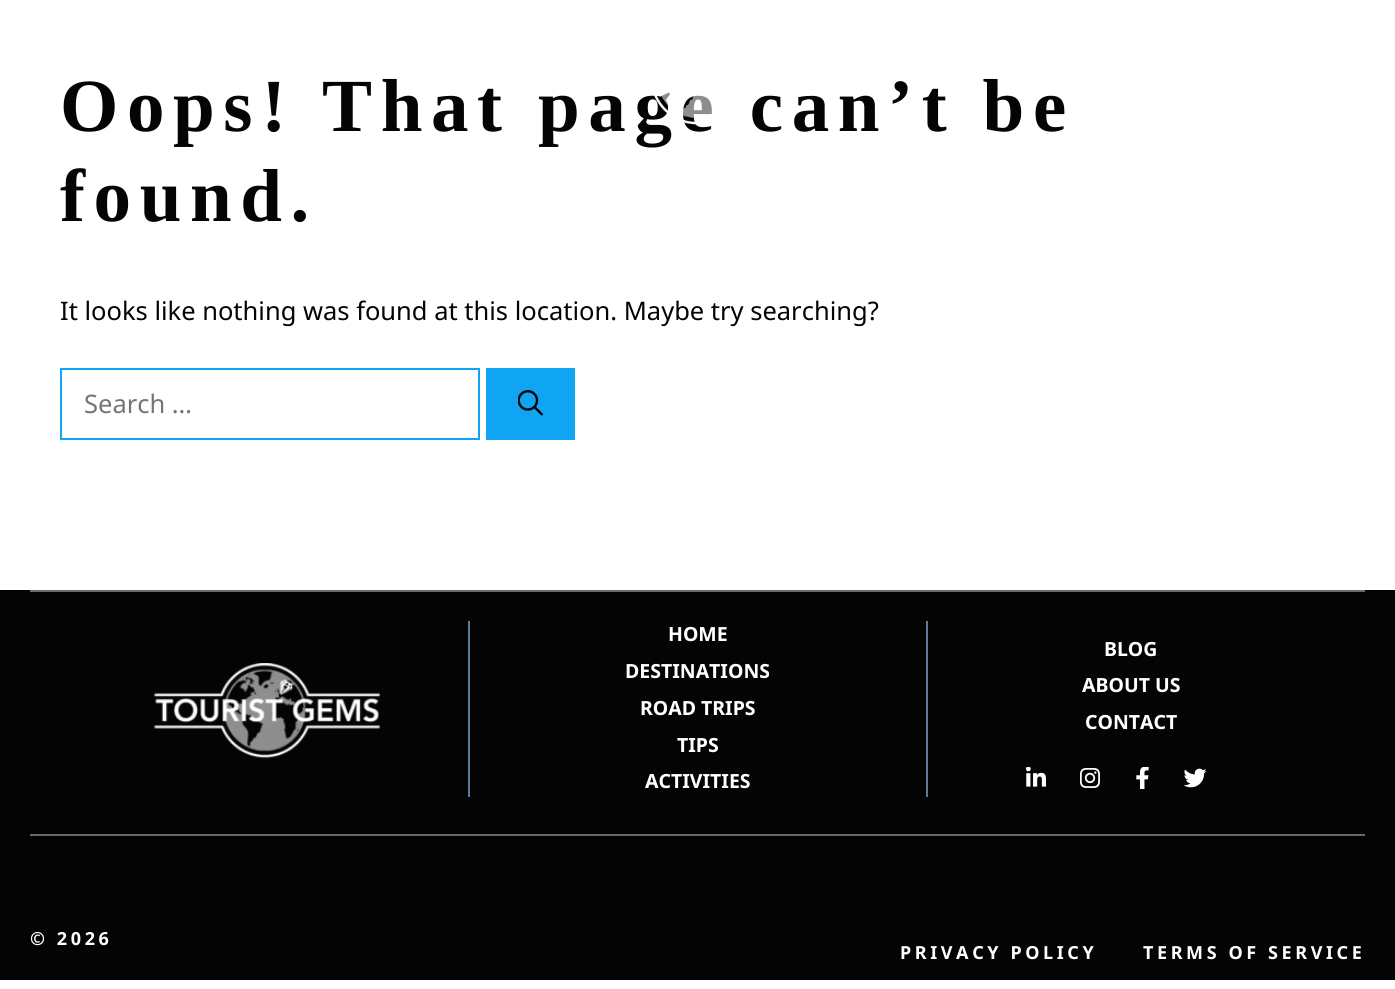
import math
import cairo



def draw_spaced(context, x, y, s, letter, word):
    context.move_to(x, y)
    for ch in s:
        context.show_text(ch)
        context.rel_move_to(letter + word * (ch == ' '), 0)


def draw_image(context, path, x, y, w, h):
    context.save()
    context.set_source_surface(cairo.ImageSurface.create_from_png(path), x, y)
    context.rectangle(x, y, w, h)
    context.fill()
    context.restore()


def draw(context):
    context.set_source_rgb(1, 1, 1)
    context.paint()
    context.rectangle(61, 369, 418, 70)
    context.set_source_rgb(15 / 255, 165 / 255, 242 / 255)
    context.stroke()
    context.rectangle(486, 368, 89, 72)
    context.fill()
    draw_image(context, "images/1.png", 518, 390, 25, 26)
    context.set_source_rgb(4 / 255, 4 / 255, 4 / 255)
    context.rectangle(0, 590, 1395, 390)
    context.fill()
    context.set_source_rgb(104 / 255, 104 / 255, 104 / 255)
    context.rectangle(30, 590, 1335, 2)
    context.fill()
    context.rectangle(30, 834, 1335, 2)
    context.fill()
    draw_image(context, "images/3.png", 154, 663, 227, 96)
    context.set_source_rgb(92 / 255, 122 / 255, 153 / 255)
    context.rectangle(926, 621, 2, 176)
    context.fill()
    context.rectangle(468, 621, 2, 176)
    context.fill()
    draw_image(context, "images/4.png", 1026, 767, 20, 20)
    draw_image(context, "images/5.png", 1080, 768, 20, 20)
    draw_image(context, "images/6.png", 1136, 767, 13, 22)
    draw_image(context, "images/7.png", 1184, 768, 23, 20)
    context.select_font_face("Liberation Serif", cairo.FontSlant.NORMAL, cairo.FontWeight.BOLD)
    context.set_font_size(75)
    context.set_source_rgb(4 / 255, 4 / 255, 4 / 255)
    draw_spaced(context, 60, 131, "Oops! That page can’t be", 8.6, 0)
    draw_spaced(context, 60, 221, "found.", 8.6, 0)
    context.select_font_face("Noto Sans")
    context.set_font_size(25.5)
    context.move_to(60, 320)
    context.show_text("It looks like nothing was found at this location. Maybe try searching?")
    context.set_source_rgb(117 / 255, 117 / 255, 117 / 255)
    context.move_to(84, 413)
    context.show_text("Search …")
    draw_image(context, "images/2.png", 607, 92, 206, 33)
    context.select_font_face("Noto Sans", cairo.FontSlant.NORMAL, cairo.FontWeight.BOLD)
    context.set_font_size(19.5)
    context.set_source_rgb(1, 1, 1)
    context.move_to(668, 641)
    context.show_text("HOME")
    context.move_to(625, 678)
    context.show_text("DESTINATIONS")
    context.move_to(640, 715)
    context.show_text("ROAD TRIPS")
    context.move_to(677, 752)
    context.show_text("TIPS")
    context.move_to(645, 788)
    context.show_text("ACTIVITIES")
    context.move_to(1104, 656)
    context.show_text("BLOG")
    context.move_to(1082, 692)
    context.show_text("ABOUT US")
    context.move_to(1085, 729)
    context.show_text("CONTACT")
    context.set_font_size(18)
    draw_spaced(context, 30, 945, "© 2026", 3.6, 0)
    draw_spaced(context, 900, 959, "PRIVACY POLICY", 3.6, 0)
    draw_spaced(context, 1143, 959, "TERMS OF SERVICE", 3.6, 0)


surface = cairo.ImageSurface(cairo.Format.RGB24, 1395, 989)
context = cairo.Context(surface)
options = cairo.FontOptions()
options.set_hint_metrics(cairo.HintMetrics.OFF)
options.set_hint_style(cairo.HintStyle.NONE)
context.set_font_options(options)
context.set_miter_limit(4)
draw(context)
surface.write_to_png("out.png")
